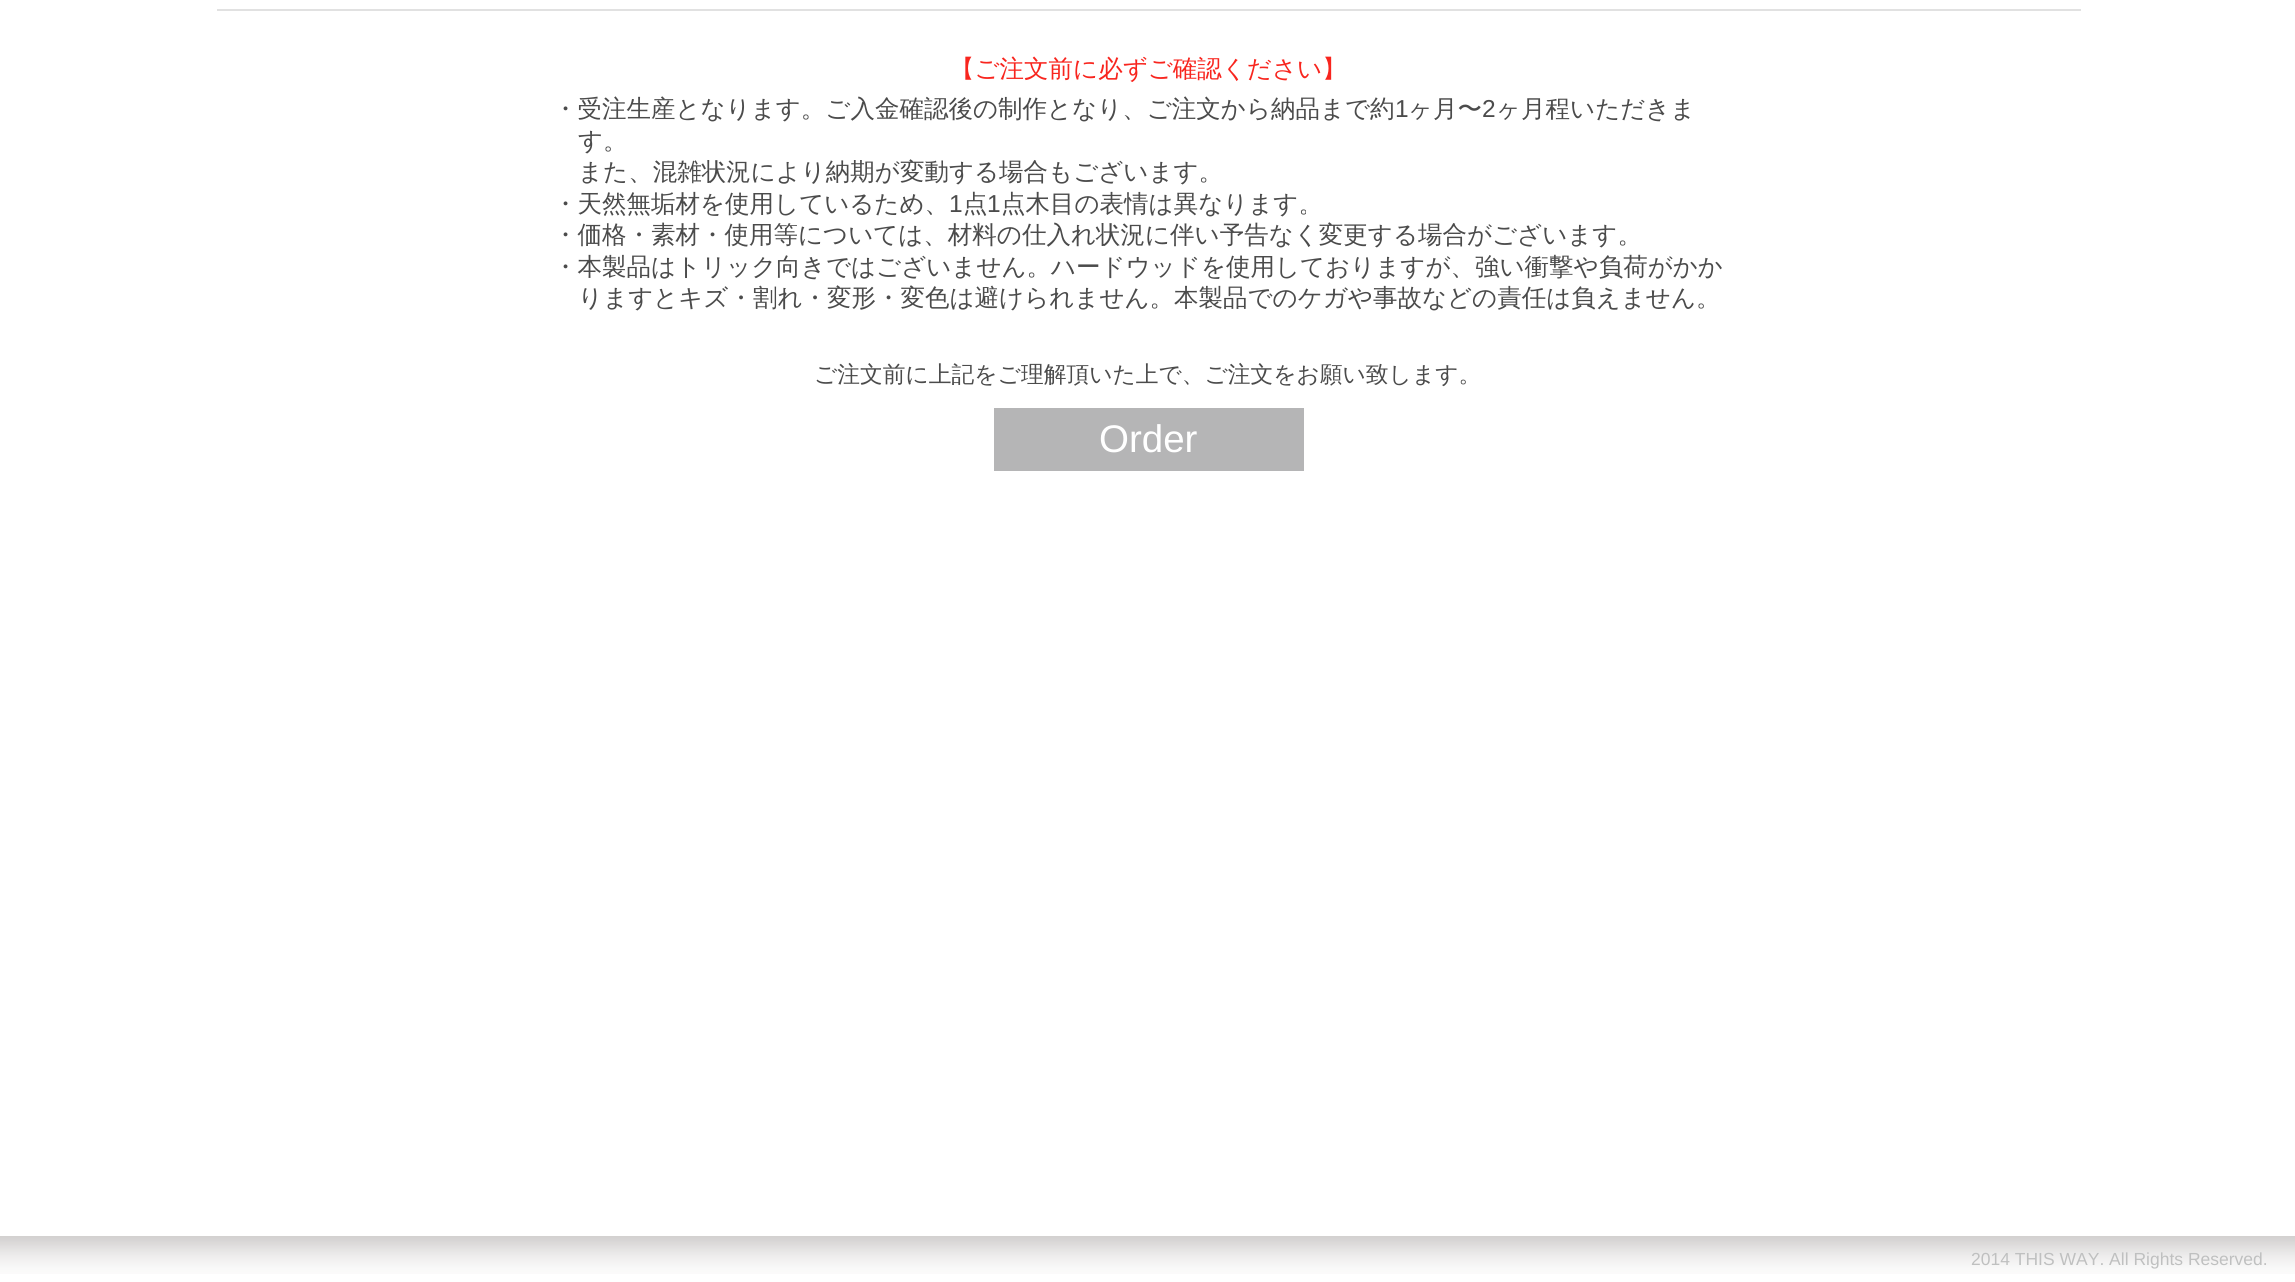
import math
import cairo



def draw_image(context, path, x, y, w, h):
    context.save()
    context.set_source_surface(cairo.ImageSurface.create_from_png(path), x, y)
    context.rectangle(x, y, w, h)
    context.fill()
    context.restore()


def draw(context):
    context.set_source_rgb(1, 1, 1)
    context.paint()
    context.set_source_rgb(225 / 255, 225 / 255, 225 / 255)
    context.rectangle(217, 9, 1864, 2)
    context.fill()
    context.set_source_rgb(181 / 255, 181 / 255, 182 / 255)
    context.rectangle(994, 408, 310, 63)
    context.fill()
    draw_image(context, "images/1.png", 0, 1236, 2295, 38)
    context.select_font_face("WenQuanYi Zen Hei Medium")
    context.set_font_size(24.5)
    context.set_source_rgb(248 / 255, 37 / 255, 30 / 255)
    context.move_to(950, 77)
    context.show_text("【ご注文前に必ずご確認ください】")
    context.set_source_rgb(75 / 255, 75 / 255, 75 / 255)
    context.move_to(553, 117)
    context.show_text("・受注生産となります。ご入金確認後の制作となり、ご注文から納品まで約")
    context.select_font_face("Liberation Sans")
    context.move_to(1395, 117)
    context.show_text("1")
    context.select_font_face("WenQuanYi Zen Hei Medium")
    context.move_to(1408, 117)
    context.show_text("ヶ月〜")
    context.select_font_face("Liberation Sans")
    context.move_to(1482, 117)
    context.show_text("2")
    context.select_font_face("WenQuanYi Zen Hei Medium")
    context.move_to(1496, 117)
    context.show_text("ヶ月程いただきま")
    context.move_to(578, 149)
    context.show_text("す。")
    context.move_to(578, 180)
    context.show_text("また、混雑状況により納期が変動する場合もございます。")
    context.move_to(553, 212)
    context.show_text("・天然無垢材を使用しているため、")
    context.select_font_face("Liberation Sans")
    context.move_to(949, 212)
    context.show_text("1")
    context.select_font_face("WenQuanYi Zen Hei Medium")
    context.move_to(963, 212)
    context.show_text("点")
    context.select_font_face("Liberation Sans")
    context.move_to(987, 212)
    context.show_text("1")
    context.select_font_face("WenQuanYi Zen Hei Medium")
    context.move_to(1001, 212)
    context.show_text("点木目の表情は異なります。")
    context.move_to(553, 243)
    context.show_text("・価格・素材・使用等については、材料の仕入れ状況に伴い予告なく変更する場合がございます。")
    context.move_to(553, 275)
    context.show_text("・本製品はトリック向きではございません。ハードウッドを使用しておりますが、強い衝撃や負荷がかか")
    context.move_to(578, 306)
    context.show_text("りますとキズ・割れ・変形・変色は避けられません。本製品でのケガや事故などの責任は負えません。")
    context.set_font_size(22.75)
    context.move_to(814, 382)
    context.show_text("ご注文前に上記をご理解頂いた上で、ご注文をお願い致します。")
    context.select_font_face("Liberation Sans")
    context.set_font_size(38.5)
    context.set_source_rgb(1, 1, 1)
    context.move_to(1099, 452)
    context.show_text("Order")
    context.set_font_size(17.5)
    context.set_source_rgb(191 / 255, 192 / 255, 192 / 255)
    context.move_to(1971, 1265)
    context.show_text("2014 THIS WAY. All Rights Reserved.")


surface = cairo.ImageSurface(cairo.Format.RGB24, 2295, 1282)
context = cairo.Context(surface)
options = cairo.FontOptions()
options.set_hint_metrics(cairo.HintMetrics.OFF)
options.set_hint_style(cairo.HintStyle.NONE)
context.set_font_options(options)
context.set_miter_limit(4)
draw(context)
surface.write_to_png("out.png")
